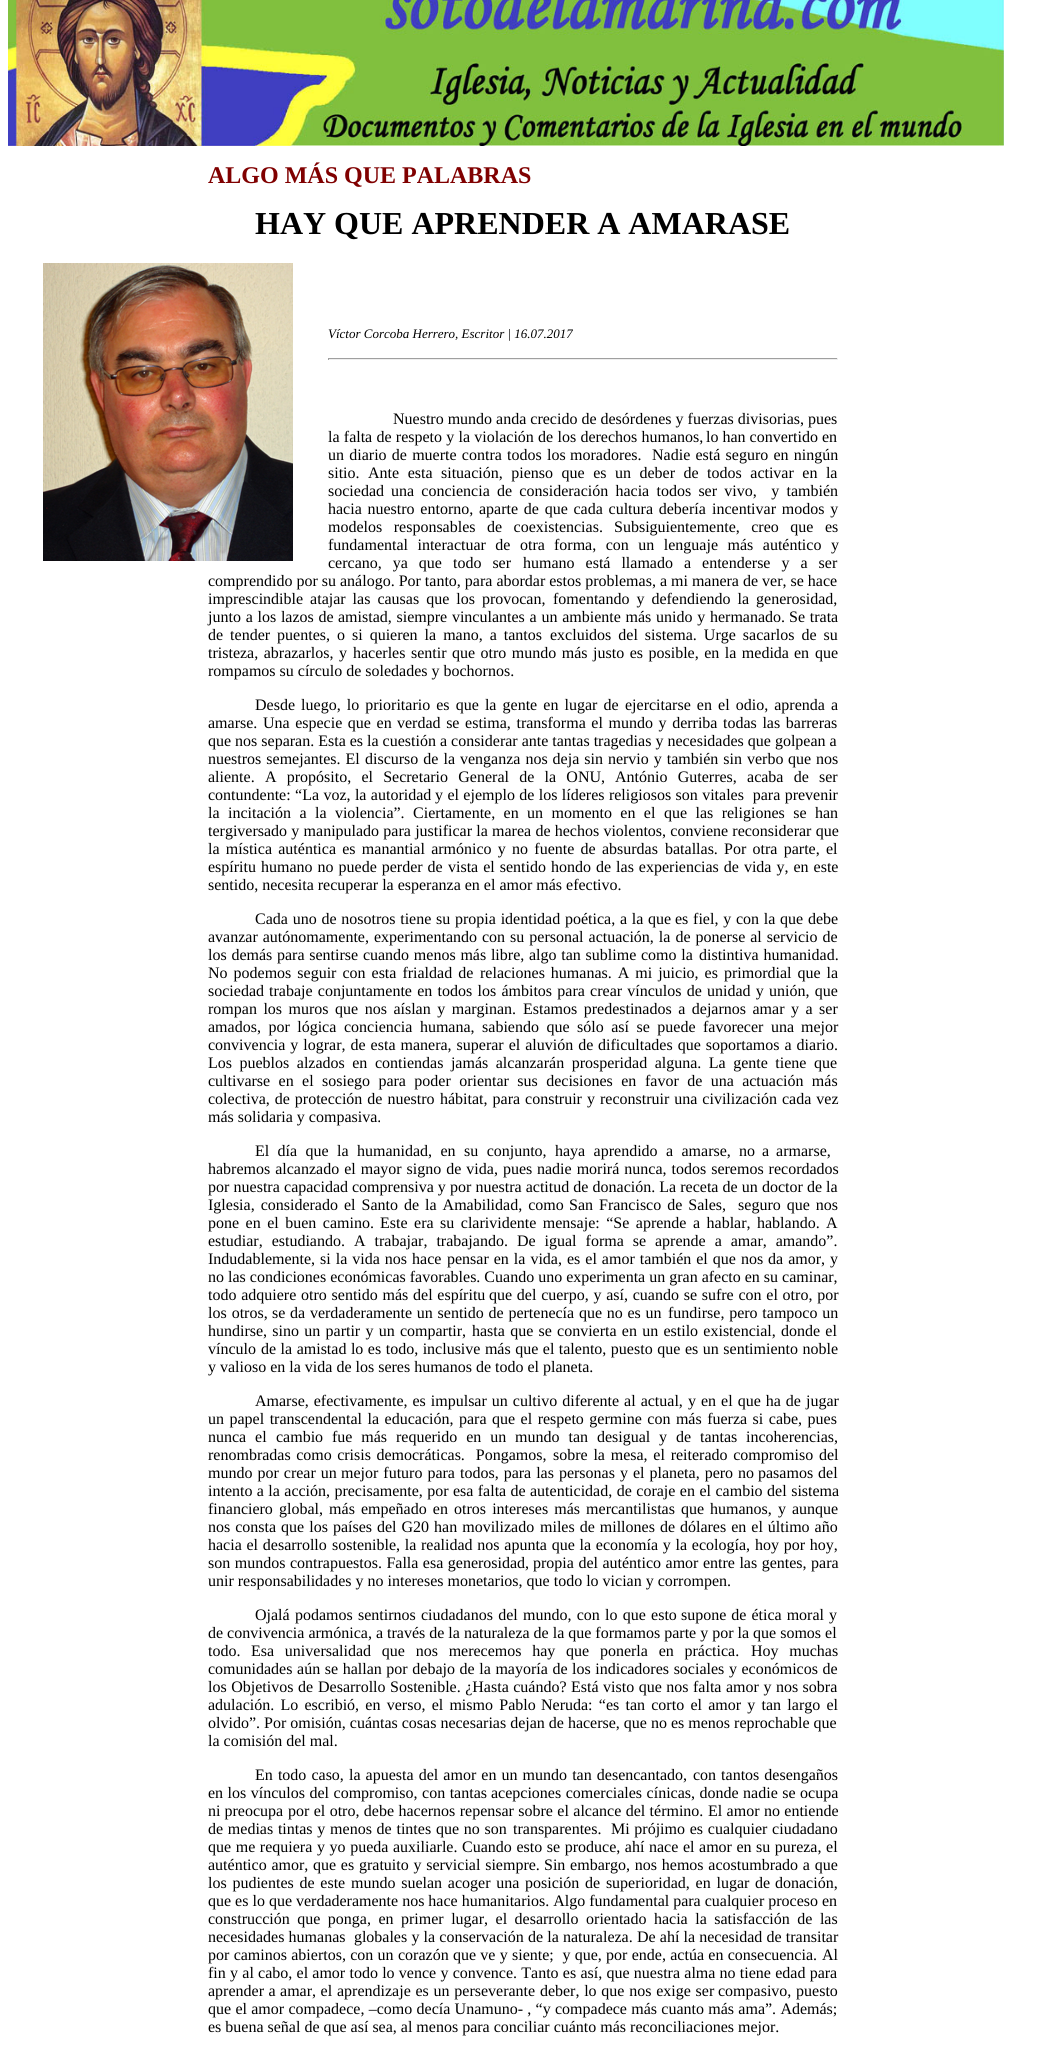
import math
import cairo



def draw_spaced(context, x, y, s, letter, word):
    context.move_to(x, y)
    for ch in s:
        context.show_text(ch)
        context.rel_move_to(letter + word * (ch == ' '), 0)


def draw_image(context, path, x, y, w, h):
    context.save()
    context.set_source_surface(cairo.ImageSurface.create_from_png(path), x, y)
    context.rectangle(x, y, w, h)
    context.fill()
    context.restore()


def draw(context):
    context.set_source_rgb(1, 1, 1)
    context.paint()
    draw_image(context, "images/1.png", 8, 0, 996, 146)
    draw_image(context, "images/2.png", 43, 263, 250, 298)
    context.set_source_rgb(159 / 255, 159 / 255, 159 / 255)
    context.rectangle(328, 358, 510, 1)
    context.fill()
    context.set_source_rgb(238 / 255, 238 / 255, 238 / 255)
    context.rectangle(837, 358, 1, 2)
    context.fill()
    context.rectangle(328, 359, 510, 1)
    context.fill()
    context.set_source_rgb(159 / 255, 159 / 255, 159 / 255)
    context.rectangle(328, 358, 1, 2)
    context.fill()
    context.select_font_face("Liberation Serif", cairo.FontSlant.NORMAL, cairo.FontWeight.BOLD)
    context.set_font_size(24)
    context.set_source_rgb(128 / 255, 0, 0)
    context.move_to(208, 183)
    context.show_text("ALGO MÁS QUE PALABRAS")
    context.set_font_size(32)
    context.set_source_rgb(0, 0, 0)
    context.move_to(255, 234)
    context.show_text("HAY QUE APRENDER A AMARASE")
    context.select_font_face("Liberation Serif", cairo.FontSlant.ITALIC)
    context.set_font_size(13)
    context.move_to(328, 338)
    context.show_text("Víctor Corcoba Herrero, Escritor | 16.07.2017")
    context.select_font_face("Liberation Serif")
    context.set_font_size(16)
    context.move_to(393, 424)
    context.show_text("Nuestro mundo anda crecido de desórdenes y fuerzas divisorias, pues")
    draw_spaced(context, 328, 442, "la falta de respeto y la violación de los derechos humanos,", 0, 0.25)
    context.move_to(706, 442)
    context.show_text("lo han convertido en")
    draw_spaced(context, 328, 460, "un diario de muerte contra todos los", 0, 1.25)
    draw_spaced(context, 570, 460, "moradores.  Nadie está seguro en ningún", 0, 1.25)
    draw_spaced(context, 328, 478, "sitio. Ante esta", 0, 4.5)
    draw_spaced(context, 441, 478, "situación, pienso que es un deber de todos activar en la", 0, 4.5)
    context.move_to(328, 496)
    context.show_text("sociedad")
    draw_spaced(context, 391, 496, "una conciencia de consideración hacia todos ser vivo,  y también", 0, 3.25)
    draw_spaced(context, 328, 514, "hacia nuestro entorno, aparte de que cada cultura debería", 0, 1.75)
    draw_spaced(context, 712, 514, "incentivar modos y", 0, 1.75)
    draw_spaced(context, 328, 532, "modelos responsables de coexistencias.", 0, 7.5)
    draw_spaced(context, 614, 532, "Subsiguientemente, creo que es", 0, 7.5)
    draw_spaced(context, 328, 550, "fundamental interactuar de otra", 0, 5.5)
    draw_spaced(context, 554, 550, "forma, con un lenguaje más auténtico y", 0, 5.5)
    draw_spaced(context, 328, 568, "cercano, ya que todo ser", 0, 7)
    draw_spaced(context, 523, 568, "humano está llamado a entenderse y a ser", 0, 7)
    context.move_to(208, 586)
    context.show_text("comprendido por su análogo. Por tanto, para abordar estos problemas, a mi manera de ver, se hace")
    draw_spaced(context, 208, 604, "imprescindible atajar las causas que los provocan,", 0, 3)
    draw_spaced(context, 553, 604, "fomentando y defendiendo la generosidad,", 0, 3)
    draw_spaced(context, 208, 622, "junto a los lazos de", 0, 0.75)
    draw_spaced(context, 338, 622, "amistad, siempre vinculantes a un ambiente más unido y hermanado.", 0, 0.75)
    draw_spaced(context, 789, 622, "Se trata", 0, 0.75)
    draw_spaced(context, 208, 640, "de tender puentes, o si quieren la mano, a tantos", 0, 3)
    draw_spaced(context, 550, 640, "excluidos del sistema. Urge sacarlos de su", 0, 3)
    draw_spaced(context, 208, 658, "tristeza, abrazarlos, y", 0, 1.5)
    draw_spaced(context, 353, 658, "hacerles sentir que otro mundo más justo es posible, en la medida", 0, 1.5)
    draw_spaced(context, 794, 658, "en que", 0, 2)
    context.move_to(208, 676)
    context.show_text("rompamos su círculo de soledades y bochornos.")
    draw_spaced(context, 255, 710, "Desde luego, lo prioritario es que la gente en lugar de", 0, 2.1)
    draw_spaced(context, 625, 710, "ejercitarse en el odio, aprenda a", 0, 2.1)
    draw_spaced(context, 208, 728, "amarse. Una especie que en", 0, 1.6)
    draw_spaced(context, 397, 728, "verdad se estima, transforma el mundo y derriba todas las barreras", 0, 1.6)
    context.move_to(208, 746)
    context.show_text("que nos separan. Esta es la cuestión a considerar ante tantas tragedias y necesidades que golpean a")
    draw_spaced(context, 208, 764, "nuestros semejantes. El", 0, 1)
    draw_spaced(context, 365, 764, "discurso de la venganza nos deja sin nervio y también sin verbo", 0, 1)
    draw_spaced(context, 788, 764, "que nos", 0, 1)
    draw_spaced(context, 208, 782, "aliente. A propósito, el Secretario General de la ONU,", 0, 6.25)
    draw_spaced(context, 615, 782, "António Guterres, acaba de ser", 0, 6.25)
    draw_spaced(context, 208, 800, "contundente: “La voz, la autoridad", 0, 0.4)
    draw_spaced(context, 435, 800, "y el ejemplo de los líderes religiosos son vitales  para prevenir", 0, 0.4)
    draw_spaced(context, 208, 818, "la incitación a la violencia”. Ciertamente, en un momento en el", 0, 4.4)
    draw_spaced(context, 664, 818, "que las religiones se han", 0, 4.4)
    draw_spaced(context, 208, 836, "tergiversado y manipulado para justificar la marea de hechos violentos, conviene reconsiderar que", 0, 0.25)
    draw_spaced(context, 208, 854, "la mística auténtica es manantial armónico y no fuente de absurdas", 0, 2.25)
    draw_spaced(context, 665, 854, "batallas. Por otra parte, el", 0, 2.25)
    draw_spaced(context, 208, 872, "espíritu humano no puede perder de", 0, 1)
    draw_spaced(context, 448, 872, "vista el sentido hondo de las experiencias de vida y, en este", 0, 1)
    context.move_to(208, 890)
    context.show_text("sentido, necesita recuperar la esperanza en el amor más efectivo.")
    draw_spaced(context, 255, 924, "Cada uno de nosotros tiene su propia identidad poética, a la que", 0, 0.75)
    draw_spaced(context, 675, 924, "es fiel, y con la que debe", 0, 0.75)
    draw_spaced(context, 208, 942, "avanzar autónomamente, experimentando", 0, 1)
    draw_spaced(context, 482, 942, "con su personal actuación, la de ponerse al servicio de", 0, 1)
    draw_spaced(context, 208, 960, "los demás", 0, 0.75)
    draw_spaced(context, 277, 960, "para sentirse cuando menos más libre, algo tan sublime como la", 0, 0.75)
    draw_spaced(context, 699, 960, "distintiva humanidad.", 0, 1)
    draw_spaced(context, 208, 978, "No podemos seguir con esta frialdad de", 0, 2)
    draw_spaced(context, 480, 978, "relaciones humanas. A mi juicio, es primordial que la", 0, 2)
    context.move_to(208, 996)
    context.show_text("sociedad")
    draw_spaced(context, 269, 996, "trabaje conjuntamente en todos los ámbitos para crear vínculos de", 0, 1.25)
    draw_spaced(context, 707, 996, "unidad y unión, que", 0, 1.25)
    draw_spaced(context, 208, 1014, "rompan los muros que nos aíslan y marginan.", 0, 2.5)
    draw_spaced(context, 523, 1014, "Estamos predestinados a dejarnos amar y a ser", 0, 2.5)
    draw_spaced(context, 208, 1032, "amados, por lógica", 0, 3.5)
    draw_spaced(context, 344, 1032, "conciencia humana, sabiendo que sólo así se puede favorecer una", 0, 3.5)
    context.move_to(801, 1032)
    context.show_text("mejor")
    draw_spaced(context, 208, 1050, "convivencia y lograr, de esta manera, superar el aluvión de", 0, 1)
    draw_spaced(context, 598, 1050, "dificultades que soportamos a diario.", 0, 1)
    draw_spaced(context, 208, 1068, "Los pueblos alzados en", 0, 3.5)
    draw_spaced(context, 375, 1068, "contiendas jamás alcanzarán prosperidad alguna. La gente tiene que", 0, 3.5)
    draw_spaced(context, 208, 1086, "cultivarse en el sosiego para poder orientar sus decisiones en", 0, 4.4)
    draw_spaced(context, 645, 1086, "favor de una actuación más", 0, 4.4)
    draw_spaced(context, 208, 1104, "colectiva, de protección de nuestro", 0, 1)
    draw_spaced(context, 440, 1104, "hábitat, para construir y reconstruir una civilización cada vez", 0, 1)
    context.move_to(208, 1122)
    context.show_text("más solidaria y compasiva.")
    draw_spaced(context, 255, 1156, "El día que la humanidad, en su conjunto, haya aprendido a amarse,", 0, 4.4)
    draw_spaced(context, 739, 1156, "no a armarse,", 0, 3)
    draw_spaced(context, 208, 1174, "habremos alcanzado el mayor signo de vida, pues", 0, 1)
    draw_spaced(context, 537, 1174, "nadie morirá nunca, todos seremos recordados", 0, 1)
    draw_spaced(context, 208, 1192, "por nuestra capacidad", 0, 0.25)
    draw_spaced(context, 352, 1192, "comprensiva y por nuestra actitud de donación. La receta de un", 0, 0.1)
    context.move_to(762, 1192)
    context.show_text("doctor de la")
    draw_spaced(context, 208, 1210, "Iglesia, considerado el Santo de la Amabilidad, como", 0, 2)
    draw_spaced(context, 569, 1210, "San Francisco de Sales,  seguro que nos", 0, 2)
    draw_spaced(context, 208, 1228, "pone en el buen camino.", 0, 2.5)
    draw_spaced(context, 380, 1228, "Este era su clarividente mensaje: “Se aprende a hablar, hablando.", 0, 2.5)
    context.move_to(826, 1228)
    context.show_text("A")
    draw_spaced(context, 208, 1246, "estudiar, estudiando. A trabajar, trabajando. De igual forma se", 0, 5)
    draw_spaced(context, 655, 1246, "aprende a amar, amando”.", 0, 5)
    draw_spaced(context, 208, 1264, "Indudablemente, si la vida nos hace", 0, 1)
    draw_spaced(context, 447, 1264, "pensar en la vida, es el amor también el que nos da amor, y", 0, 1)
    context.move_to(208, 1282)
    context.show_text("no las condiciones económicas favorables. Cuando uno experimenta un gran afecto en su caminar,")
    draw_spaced(context, 208, 1300, "todo adquiere otro sentido más del espíritu", 0, 0.75)
    draw_spaced(context, 489, 1300, "que del cuerpo, y así, cuando se sufre con el otro, por", 0, 0.75)
    draw_spaced(context, 208, 1318, "los otros,", 0, 1)
    draw_spaced(context, 272, 1318, "se da verdaderamente un sentido de pertenecía que no es un", 0, 0.75)
    draw_spaced(context, 668, 1318, "fundirse, pero tampoco un", 0, 0.75)
    draw_spaced(context, 208, 1336, "hundirse, sino un partir y un compartir,", 0, 1.25)
    draw_spaced(context, 472, 1336, "hasta que se convierta en un estilo existencial, donde el", 0, 1.25)
    context.move_to(208, 1354)
    context.show_text("vínculo")
    draw_spaced(context, 261, 1354, "de la amistad lo es todo, inclusive más que el talento, puesto que", 0, 0.5)
    draw_spaced(context, 685, 1354, "es un sentimiento noble", 0, 0.5)
    context.move_to(208, 1372)
    context.show_text("y valioso en la vida de los seres humanos de todo el planeta.")
    draw_spaced(context, 255, 1406, "Amarse, efectivamente, es impulsar un cultivo diferente al actual,", 0, 1)
    draw_spaced(context, 688, 1406, "y en el que ha de jugar", 0, 1)
    draw_spaced(context, 208, 1424, "un papel transcendental la educación, para", 0, 1.5)
    draw_spaced(context, 492, 1424, "que el respeto germine con más fuerza si cabe, pues", 0, 1.5)
    draw_spaced(context, 208, 1442, "nunca el", 0, 4.9)
    draw_spaced(context, 276, 1442, "cambio fue más requerido en un mundo tan desigual y de tantas", 0, 4.9)
    context.move_to(746, 1442)
    context.show_text("incoherencias,")
    draw_spaced(context, 208, 1460, "renombradas como crisis democráticas.  Pongamos,", 0, 1.5)
    draw_spaced(context, 553, 1460, "sobre la mesa, el reiterado compromiso del", 0, 1.75)
    draw_spaced(context, 208, 1478, "mundo por crear un", 0, 1)
    draw_spaced(context, 341, 1478, "mejor futuro para todos, para las personas y el planeta, pero no", 0, 1)
    draw_spaced(context, 758, 1478, "pasamos del", 0, 1)
    draw_spaced(context, 208, 1496, "intento a la acción, precisamente, por esa falta de", 0, 0.4)
    draw_spaced(context, 530, 1496, "autenticidad, de coraje en el cambio del sistema", 0, 0.5)
    context.move_to(208, 1514)
    context.show_text("financiero")
    draw_spaced(context, 279, 1514, "global, más empeñado en otros intereses más mercantilistas que", 0, 2.1)
    draw_spaced(context, 710, 1514, "humanos, y aunque", 0, 2.1)
    draw_spaced(context, 208, 1532, "nos consta que los países del G20 han movilizado", 0, 1)
    draw_spaced(context, 540, 1532, "miles de millones de dólares en el último año", 0, 1)
    draw_spaced(context, 208, 1550, "hacia el desarrollo", 0, 0.75)
    draw_spaced(context, 332, 1550, "sostenible, la realidad nos apunta que la economía y la ecología,", 0, 0.75)
    draw_spaced(context, 755, 1550, "hoy por hoy,", 0, 0.75)
    draw_spaced(context, 208, 1568, "son mundos contrapuestos. Falla esa generosidad,", 0, 0.5)
    draw_spaced(context, 533, 1568, "propia del auténtico amor entre las gentes, para", 0, 0.5)
    context.move_to(208, 1586)
    context.show_text("unir responsabilidades y no intereses monetarios, que todo lo vician y corrompen.")
    draw_spaced(context, 255, 1620, "Ojalá podamos sentirnos ciudadanos del mundo, con lo que esto", 0, 1.25)
    draw_spaced(context, 681, 1620, "supone de ética moral y", 0, 1)
    context.move_to(208, 1638)
    context.show_text("de convivencia armónica, a través de la naturaleza de la que formamos parte y por la que somos el")
    context.move_to(208, 1656)
    context.show_text("todo.")
    draw_spaced(context, 251, 1656, "Esa universalidad que nos merecemos hay que ponerla en práctica.", 0, 6.75)
    draw_spaced(context, 751, 1656, "Hoy muchas", 0, 6.75)
    draw_spaced(context, 208, 1674, "comunidades aún se hallan por debajo de la mayoría de", 0, 0.6)
    draw_spaced(context, 572, 1674, "los indicadores sociales y económicos de", 0, 0.6)
    draw_spaced(context, 208, 1692, "los Objetivos de", 0, 0.5)
    draw_spaced(context, 318, 1692, "Desarrollo Sostenible. ¿Hasta cuándo? Está visto que nos falta", 0, 0.5)
    draw_spaced(context, 726, 1692, "amor y nos sobra", 0, 0.5)
    draw_spaced(context, 208, 1710, "adulación. Lo escribió, en verso, el mismo Pablo", 0, 2.25)
    draw_spaced(context, 541, 1710, "Neruda: “es tan corto el amor y tan largo el", 0, 2.25)
    context.move_to(208, 1728)
    context.show_text("olvido”. Por omisión, cuántas cosas necesarias dejan de hacerse, que no es menos reprochable que")
    context.move_to(208, 1746)
    context.show_text("la comisión del mal.")
    draw_spaced(context, 255, 1780, "En todo caso, la apuesta del amor en un mundo tan desencantado,", 0, 1.1)
    draw_spaced(context, 693, 1780, "con tantos desengaños", 0, 1)
    draw_spaced(context, 208, 1798, "en los vínculos del compromiso, con tantas", 0, 0.5)
    draw_spaced(context, 491, 1798, "acepciones comerciales cínicas, donde nadie se ocupa", 0, 0.5)
    context.move_to(208, 1816)
    context.show_text("ni preocupa")
    draw_spaced(context, 288, 1816, "por el otro, debe hacernos repensar sobre el alcance del término.", 0, 0.4)
    draw_spaced(context, 708, 1816, "El amor no entiende", 0, 0.4)
    draw_spaced(context, 208, 1834, "de medias tintas y menos de tintes que no son", 0, 0.75)
    draw_spaced(context, 513, 1834, "transparentes.  Mi prójimo es cualquier ciudadano", 0, 0.75)
    draw_spaced(context, 208, 1852, "que me requiera", 0, 0.6)
    draw_spaced(context, 317, 1852, "y yo pueda auxiliarle. Cuando esto se produce, ahí nace el amor en", 0, 0.6)
    draw_spaced(context, 756, 1852, "su pureza, el", 0, 0.6)
    draw_spaced(context, 208, 1870, "auténtico amor, que es gratuito y servicial siempre.", 0, 0.75)
    draw_spaced(context, 544, 1870, "Sin embargo, nos hemos acostumbrado a que", 0, 0.75)
    draw_spaced(context, 208, 1888, "los pudientes de este", 0, 1.75)
    draw_spaced(context, 351, 1888, "mundo suelan acoger una posición de superioridad, en lugar de", 0, 1.75)
    context.move_to(775, 1888)
    context.show_text("donación,")
    context.move_to(208, 1906)
    context.show_text("que es lo que verdaderamente nos hace humanitarios. Algo fundamental para cualquier proceso en")
    draw_spaced(context, 208, 1924, "construcción que ponga, en", 0, 3.5)
    draw_spaced(context, 401, 1924, "primer lugar, el desarrollo orientado hacia la satisfacción de las", 0, 3.5)
    draw_spaced(context, 208, 1942, "necesidades humanas  globales y la conservación de la naturaleza. De ahí la necesidad de transitar", 0, 0.2)
    draw_spaced(context, 208, 1960, "por caminos abiertos, con un", 0, 0.3)
    draw_spaced(context, 398, 1960, "corazón que ve y siente;  y que, por ende, actúa en consecuencia.", 0, 0.3)
    context.move_to(822, 1960)
    context.show_text("Al")
    draw_spaced(context, 208, 1978, "fin y al cabo, el amor todo lo vence y convence. Tanto es así, que nuestra alma no tiene edad para", 0, 0.25)
    draw_spaced(context, 208, 1996, "aprender a amar, el", 0, 0.5)
    draw_spaced(context, 337, 1996, "aprendizaje es un perseverante deber, lo que nos exige ser", 0, 0.75)
    draw_spaced(context, 718, 1996, "compasivo, puesto", 0, 0.75)
    draw_spaced(context, 208, 2014, "que el amor compadece, –como decía Unamuno- , “y", 0, 0.3)
    draw_spaced(context, 555, 2014, "compadece más cuanto más ama”. Además;", 0, 0.3)
    context.move_to(208, 2032)
    context.show_text("es buena señal de que así sea, al menos para conciliar cuánto más reconciliaciones mejor.")


surface = cairo.ImageSurface(cairo.Format.RGB24, 1046, 2060)
context = cairo.Context(surface)
options = cairo.FontOptions()
options.set_hint_metrics(cairo.HintMetrics.OFF)
options.set_hint_style(cairo.HintStyle.NONE)
context.set_font_options(options)
context.set_miter_limit(4)
draw(context)
surface.write_to_png("out.png")
